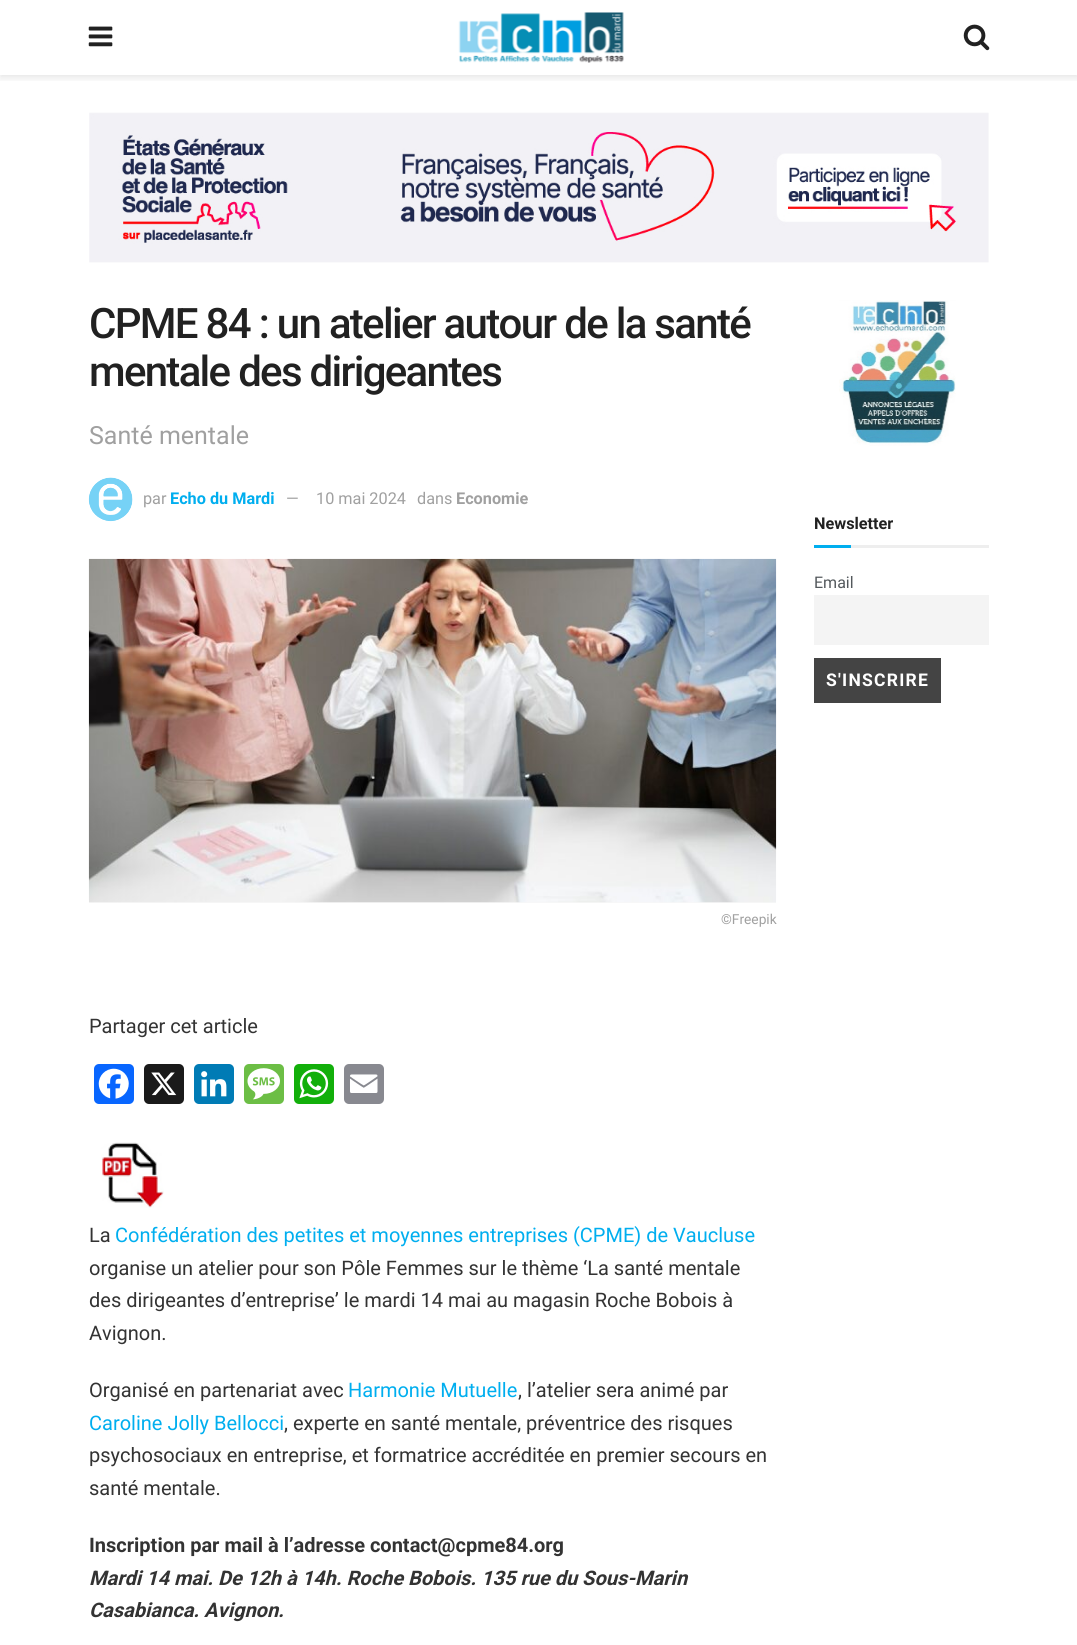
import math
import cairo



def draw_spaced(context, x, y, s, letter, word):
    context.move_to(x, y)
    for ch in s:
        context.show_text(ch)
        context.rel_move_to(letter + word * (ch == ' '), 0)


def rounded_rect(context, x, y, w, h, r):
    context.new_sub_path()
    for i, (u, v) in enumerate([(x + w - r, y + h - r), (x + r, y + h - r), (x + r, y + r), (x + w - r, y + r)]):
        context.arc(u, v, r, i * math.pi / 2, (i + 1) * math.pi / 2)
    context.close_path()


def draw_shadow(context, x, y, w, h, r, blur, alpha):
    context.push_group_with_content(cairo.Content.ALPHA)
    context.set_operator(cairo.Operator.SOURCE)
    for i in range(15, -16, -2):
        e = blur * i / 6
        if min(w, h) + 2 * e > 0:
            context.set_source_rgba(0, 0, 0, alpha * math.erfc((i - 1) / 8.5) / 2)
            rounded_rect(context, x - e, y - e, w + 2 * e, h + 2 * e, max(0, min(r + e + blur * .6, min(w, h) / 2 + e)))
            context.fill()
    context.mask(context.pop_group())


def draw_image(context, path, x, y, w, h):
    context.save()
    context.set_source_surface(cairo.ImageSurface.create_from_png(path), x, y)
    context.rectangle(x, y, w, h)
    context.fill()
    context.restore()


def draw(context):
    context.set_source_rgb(1, 1, 1)
    context.paint()
    context.save()
    context.rectangle(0, 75, 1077, 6)
    context.clip()
    context.set_source_rgb(0, 0, 0)
    draw_shadow(context, 0, 3, 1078, 75, 0, 4, 0.1)
    context.restore()
    draw_image(context, "images/1.png", 88, 26, 25, 21)
    draw_image(context, "images/2.png", 458, 12, 166, 51)
    draw_image(context, "images/3.png", 963, 24, 27, 27)
    draw_image(context, "images/4.png", 89, 112, 900, 151)
    draw_image(context, "images/5.png", 88, 477, 45, 45)
    context.set_source_rgb(247 / 255, 247 / 255, 247 / 255)
    context.rectangle(89, 902, 687, 1)
    context.fill()
    draw_image(context, "images/6.png", 88, 558, 689, 345)
    context.set_source_rgb(8 / 255, 102 / 255, 1)
    rounded_rect(context, 94, 1064, 40, 40, 5)
    context.fill()
    draw_image(context, "images/7.png", 98, 1068, 31, 31)
    context.set_source_rgb(26 / 255, 26 / 255, 26 / 255)
    rounded_rect(context, 144, 1064, 40, 40, 5)
    context.fill()
    draw_image(context, "images/8.png", 151, 1072, 26, 24)
    context.set_source_rgb(0, 123 / 255, 181 / 255)
    rounded_rect(context, 194, 1064, 40, 40, 5)
    context.fill()
    draw_image(context, "images/9.png", 201, 1071, 26, 26)
    context.set_source_rgb(108 / 255, 190 / 255, 69 / 255)
    rounded_rect(context, 244, 1064, 40, 40, 5)
    context.fill()
    draw_image(context, "images/10.png", 247, 1068, 33, 32)
    context.set_source_rgb(18 / 255, 175 / 255, 10 / 255)
    rounded_rect(context, 294, 1064, 40, 40, 5)
    context.fill()
    draw_image(context, "images/11.png", 299, 1069, 30, 30)
    context.set_source_rgb(136 / 255, 137 / 255, 144 / 255)
    rounded_rect(context, 344, 1064, 40, 40, 5)
    context.fill()
    draw_image(context, "images/12.png", 350, 1074, 28, 19)
    draw_image(context, "images/13.png", 101, 1142, 63, 66)
    draw_image(context, "images/14.png", 839, 300, 117, 146)
    context.set_source_rgb(238 / 255, 238 / 255, 238 / 255)
    context.rectangle(851, 545, 138, 3)
    context.fill()
    context.set_source_rgb(0, 174 / 255, 239 / 255)
    context.rectangle(814, 545, 37, 3)
    context.fill()
    context.set_source_rgb(244 / 255, 244 / 255, 244 / 255)
    context.rectangle(814, 595, 175, 50)
    context.fill()
    context.set_source_rgb(68 / 255, 68 / 255, 68 / 255)
    context.rectangle(814, 658, 127, 45)
    context.fill()
    context.select_font_face("Roboto Medium")
    context.set_font_size(42)
    context.set_source_rgb(33 / 255, 33 / 255, 33 / 255)
    draw_spaced(context, 89, 338, "CPME 84 : un atelier autour de la santé", -1.7, 0)
    draw_spaced(context, 89, 386, "mentale des dirigeantes", -1.7, 0)
    context.select_font_face("Roboto")
    context.set_font_size(25)
    context.set_source_rgb(160 / 255, 160 / 255, 160 / 255)
    context.move_to(89, 444)
    context.show_text("Santé mentale")
    context.set_font_size(16.25)
    context.move_to(143, 504)
    context.show_text("par")
    context.select_font_face("Roboto", cairo.FontSlant.NORMAL, cairo.FontWeight.BOLD)
    context.set_source_rgb(0, 174 / 255, 239 / 255)
    context.move_to(170, 504)
    context.show_text("Echo du Mardi")
    context.select_font_face("Roboto")
    context.set_source_rgb(160 / 255, 160 / 255, 160 / 255)
    context.move_to(286, 504)
    context.show_text("—")
    context.move_to(316, 504)
    context.show_text("10 mai 2024")
    context.move_to(417, 504)
    context.show_text("dans")
    context.select_font_face("Roboto", cairo.FontSlant.NORMAL, cairo.FontWeight.BOLD)
    context.move_to(456, 504)
    context.show_text("Economie")
    context.select_font_face("Roboto")
    context.set_font_size(13.75)
    context.move_to(721, 924)
    context.show_text("©Freepik")
    context.set_font_size(20)
    context.set_source_rgb(51 / 255, 51 / 255, 51 / 255)
    context.move_to(89, 1033)
    context.show_text("Partager cet article")
    context.move_to(89, 1242)
    context.show_text("La")
    context.set_source_rgb(0, 174 / 255, 239 / 255)
    context.move_to(115, 1242)
    context.show_text("Confédération des petites et moyennes entreprises (CPME) de Vaucluse")
    context.set_source_rgb(51 / 255, 51 / 255, 51 / 255)
    context.move_to(89, 1275)
    context.show_text("organise un atelier pour son Pôle Femmes sur le thème ‘La santé mentale")
    context.move_to(89, 1307)
    context.show_text("des dirigeantes d’entreprise’ le mardi 14 mai au magasin Roche Bobois à")
    context.move_to(89, 1340)
    context.show_text("Avignon.")
    context.move_to(89, 1397)
    context.show_text("Organisé en partenariat avec")
    context.set_source_rgb(0, 174 / 255, 239 / 255)
    context.move_to(348, 1397)
    context.show_text("Harmonie Mutuelle")
    context.set_source_rgb(51 / 255, 51 / 255, 51 / 255)
    context.move_to(518, 1397)
    context.show_text(", l’atelier sera animé par")
    context.set_source_rgb(0, 174 / 255, 239 / 255)
    context.move_to(89, 1430)
    context.show_text("Caroline Jolly Bellocci")
    context.set_source_rgb(51 / 255, 51 / 255, 51 / 255)
    context.move_to(284, 1430)
    context.show_text(", experte en santé mentale, préventrice des risques")
    context.move_to(89, 1462)
    context.show_text("psychosociaux en entreprise, et formatrice accréditée en premier secours en")
    context.move_to(89, 1495)
    context.show_text("santé mentale.")
    context.select_font_face("Roboto", cairo.FontSlant.NORMAL, cairo.FontWeight.BOLD)
    context.move_to(89, 1552)
    context.show_text("Inscription par mail à l’adresse contact@cpme84.org")
    context.select_font_face("Roboto", cairo.FontSlant.ITALIC, cairo.FontWeight.BOLD)
    context.move_to(89, 1585)
    context.show_text("Mardi 14 mai. De 12h à 14h. Roche Bobois. 135 rue du Sous-Marin")
    context.move_to(89, 1617)
    context.show_text("Casabianca. Avignon.")
    context.select_font_face("Roboto", cairo.FontSlant.NORMAL, cairo.FontWeight.BOLD)
    context.set_font_size(16.25)
    context.set_source_rgb(33 / 255, 33 / 255, 33 / 255)
    context.move_to(814, 529)
    context.show_text("Newsletter")
    context.select_font_face("Roboto")
    context.set_font_size(16)
    context.set_source_rgb(83 / 255, 88 / 255, 92 / 255)
    context.move_to(814, 588)
    context.show_text("Email")
    context.select_font_face("Roboto", cairo.FontSlant.NORMAL, cairo.FontWeight.BOLD)
    context.set_font_size(17.5)
    context.set_source_rgb(1, 1, 1)
    draw_spaced(context, 826, 686, "S'INSCRIRE", 1.25, 0)


surface = cairo.ImageSurface(cairo.Format.RGB24, 1077, 1645)
context = cairo.Context(surface)
options = cairo.FontOptions()
options.set_hint_metrics(cairo.HintMetrics.OFF)
options.set_hint_style(cairo.HintStyle.NONE)
context.set_font_options(options)
context.set_miter_limit(4)
draw(context)
surface.write_to_png("out.png")
